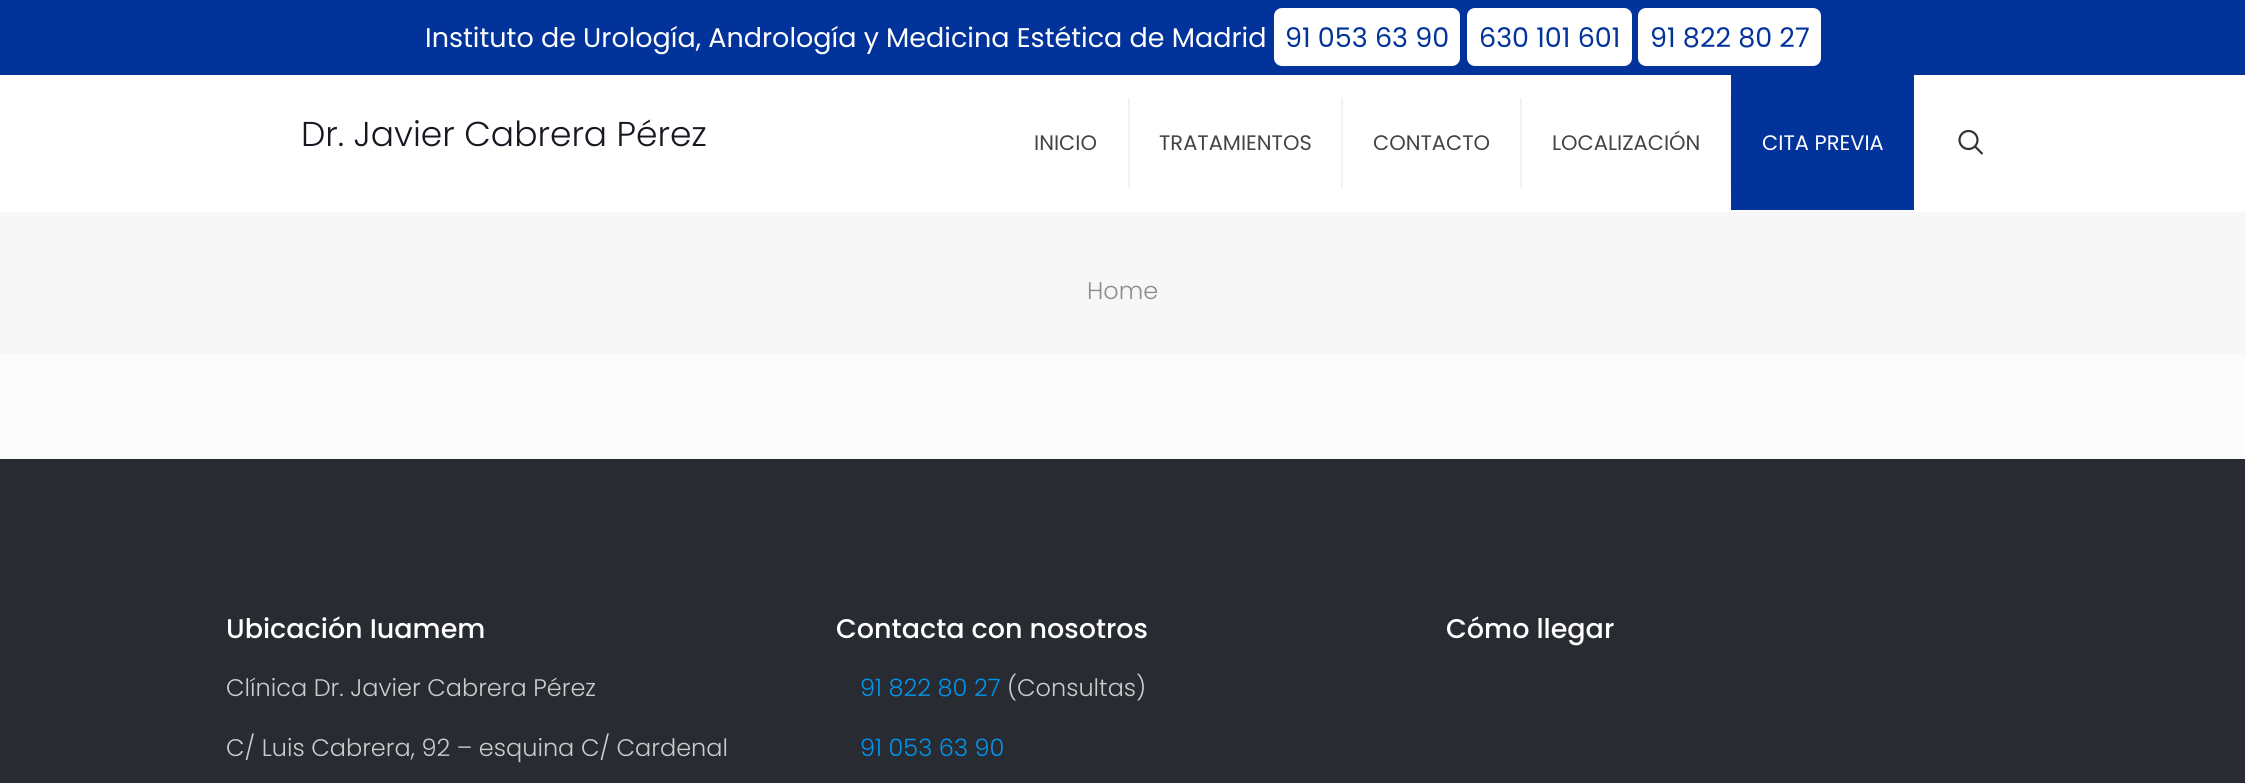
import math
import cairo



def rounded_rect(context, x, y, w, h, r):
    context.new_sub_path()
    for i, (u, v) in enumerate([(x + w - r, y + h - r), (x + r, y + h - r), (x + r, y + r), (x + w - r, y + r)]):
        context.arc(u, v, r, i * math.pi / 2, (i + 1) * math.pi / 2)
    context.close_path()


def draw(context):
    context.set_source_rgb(252 / 255, 252 / 255, 252 / 255)
    context.paint()
    context.set_source_rgb(2 / 255, 51 / 255, 155 / 255)
    context.rectangle(0, 0, 2245, 75)
    context.fill()
    context.set_source_rgb(1, 1, 1)
    rounded_rect(context, 1274, 8, 186, 58, 8)
    context.fill()
    rounded_rect(context, 1467, 8, 165, 58, 8)
    context.fill()
    rounded_rect(context, 1638, 8, 183, 58, 8)
    context.fill()
    context.rectangle(0, 75, 2245, 137)
    context.fill()
    context.set_source_rgb(242 / 255, 242 / 255, 242 / 255)
    context.rectangle(1128, 98, 2, 90)
    context.fill()
    context.rectangle(1341, 98, 2, 90)
    context.fill()
    context.rectangle(1520, 98, 2, 90)
    context.fill()
    context.rectangle(1730, 98, 1, 90)
    context.fill()
    context.set_source_rgb(2 / 255, 51 / 255, 155 / 255)
    context.rectangle(1731, 75, 183, 135)
    context.fill()
    context.arc(1968.5, 140, 9, 0, 2 * math.pi)
    context.set_source_rgb(51 / 255, 51 / 255, 51 / 255)
    context.set_line_width(2.2)
    context.stroke()
    context.new_path()
    context.move_to(1975, 146.5)
    context.line_to(1982.5, 154)
    context.stroke()
    context.set_source_rgb(247 / 255, 247 / 255, 247 / 255)
    context.rectangle(0, 212, 2245, 142)
    context.fill()
    context.set_source_rgb(41 / 255, 43 / 255, 51 / 255)
    context.rectangle(0, 459, 2245, 324)
    context.fill()
    context.select_font_face("Poppins")
    context.set_font_size(27)
    context.set_source_rgb(1, 1, 1)
    context.move_to(425, 47)
    context.show_text("Instituto de Urología, Andrología y Medicina Estética de Madrid")
    context.set_source_rgb(2 / 255, 51 / 255, 155 / 255)
    context.move_to(1285, 47)
    context.show_text("91 053 63 90")
    context.move_to(1479, 47)
    context.show_text("630 101 601")
    context.move_to(1650, 47)
    context.show_text("91 822 80 27")
    context.select_font_face("Poppins Light")
    context.set_font_size(34.5)
    context.set_source_rgb(22 / 255, 25 / 255, 34 / 255)
    context.move_to(301, 146)
    context.show_text("Dr. Javier Cabrera Pérez")
    context.select_font_face("Poppins")
    context.set_font_size(21)
    context.set_source_rgb(68 / 255, 68 / 255, 68 / 255)
    context.move_to(1034, 150)
    context.show_text("INICIO")
    context.move_to(1159, 150)
    context.show_text("TRATAMIENTOS")
    context.move_to(1373, 150)
    context.show_text("CONTACTO")
    context.move_to(1552, 150)
    context.show_text("LOCALIZACIÓN")
    context.set_source_rgb(1, 1, 1)
    context.move_to(1762, 150)
    context.show_text("CITA PREVIA")
    context.select_font_face("Poppins Light")
    context.set_font_size(24)
    context.set_source_rgb(140 / 255, 140 / 255, 140 / 255)
    context.move_to(1087, 299)
    context.show_text("Home")
    context.select_font_face("Poppins Medium")
    context.set_font_size(27)
    context.set_source_rgb(1, 1, 1)
    context.move_to(226, 638)
    context.show_text("Ubicación Iuamem")
    context.select_font_face("Poppins Light")
    context.set_font_size(24)
    context.set_source_rgb(204 / 255, 204 / 255, 204 / 255)
    context.move_to(226, 696)
    context.show_text("Clínica Dr. Javier Cabrera Pérez")
    context.move_to(226, 756)
    context.show_text("C/ Luis Cabrera, 92 – esquina C/ Cardenal")
    context.select_font_face("Poppins Medium")
    context.set_font_size(27)
    context.set_source_rgb(1, 1, 1)
    context.move_to(836, 638)
    context.show_text("Contacta con nosotros")
    context.select_font_face("Poppins Light")
    context.set_font_size(24)
    context.set_source_rgb(0, 149 / 255, 235 / 255)
    context.move_to(860, 696)
    context.show_text("91 822 80 27")
    context.set_source_rgb(204 / 255, 204 / 255, 204 / 255)
    context.move_to(1007, 696)
    context.show_text("(Consultas)")
    context.set_source_rgb(0, 149 / 255, 235 / 255)
    context.move_to(860, 756)
    context.show_text("91 053 63 90")
    context.select_font_face("Poppins Medium")
    context.set_font_size(27)
    context.set_source_rgb(1, 1, 1)
    context.move_to(1446, 638)
    context.show_text("Cómo llegar")


surface = cairo.ImageSurface(cairo.Format.RGB24, 2245, 783)
context = cairo.Context(surface)
options = cairo.FontOptions()
options.set_hint_metrics(cairo.HintMetrics.OFF)
options.set_hint_style(cairo.HintStyle.NONE)
context.set_font_options(options)
context.set_miter_limit(4)
draw(context)
surface.write_to_png("out.png")
